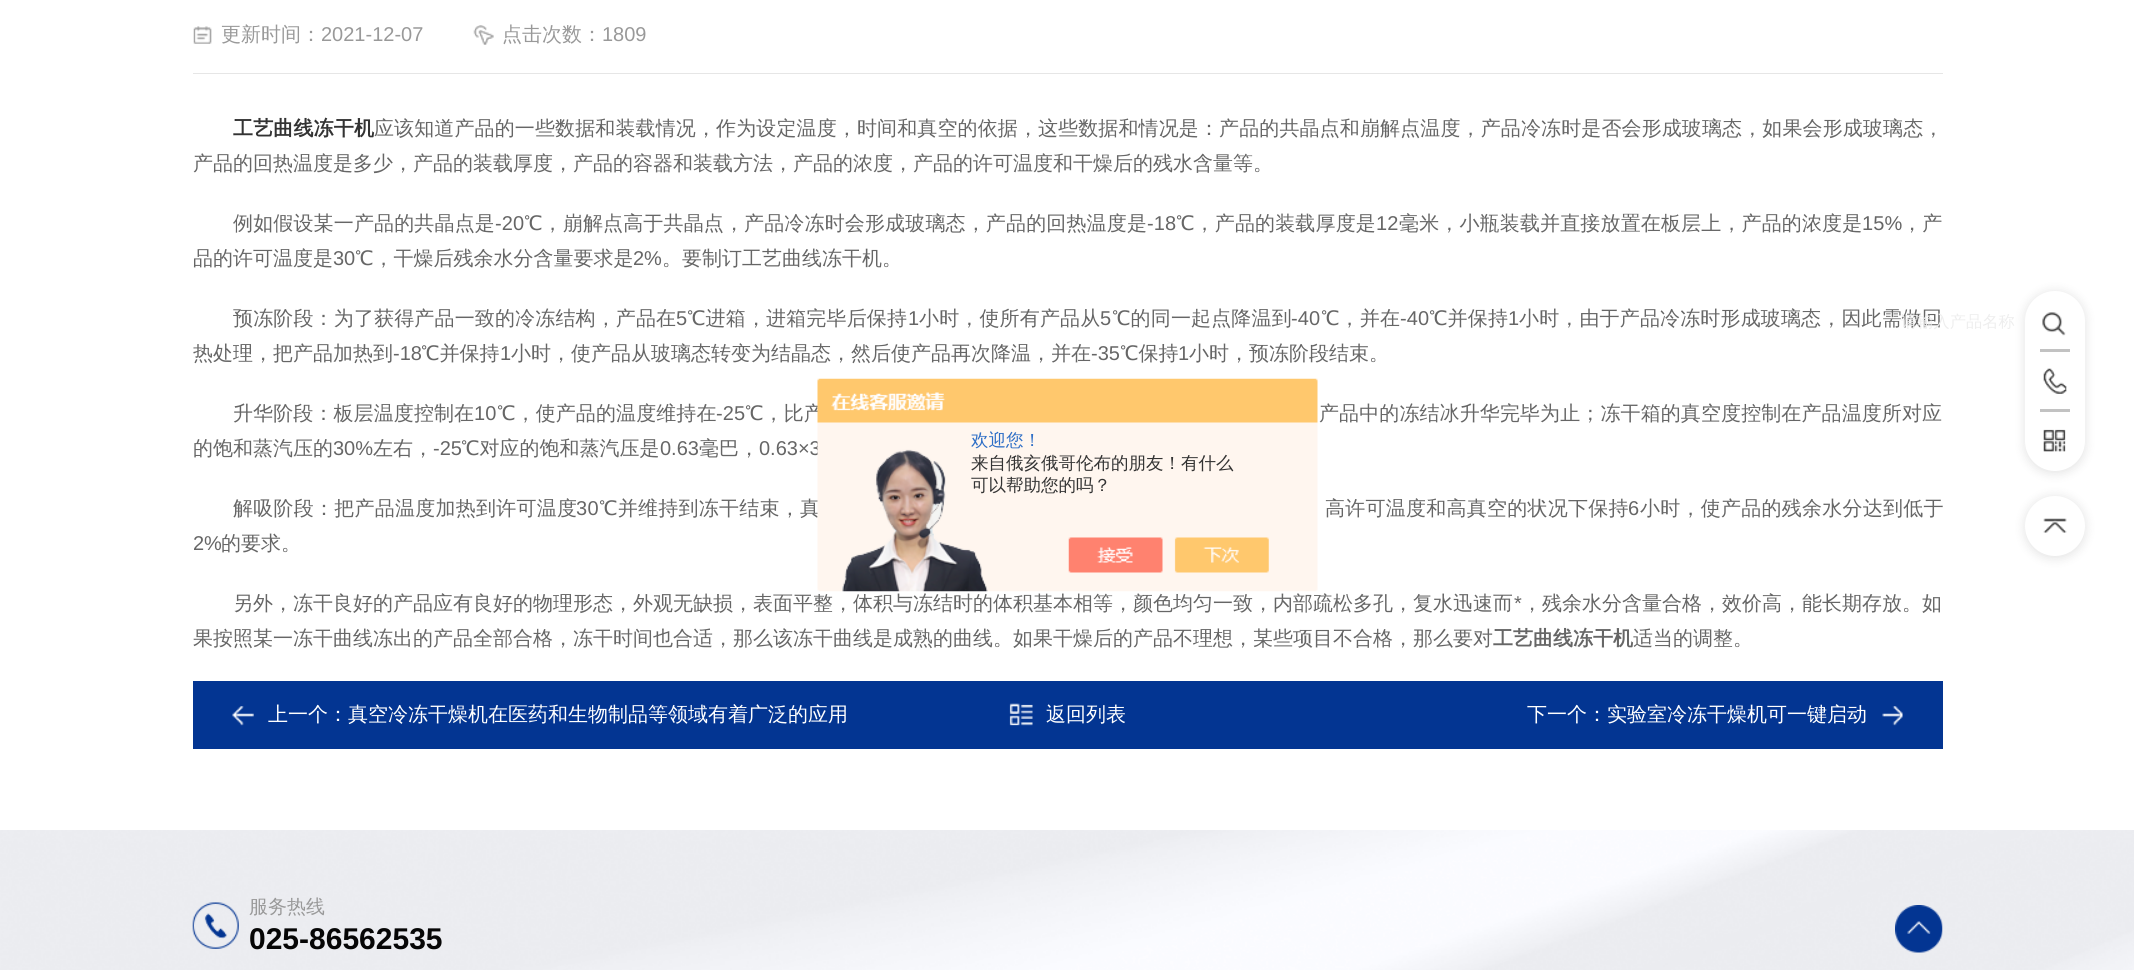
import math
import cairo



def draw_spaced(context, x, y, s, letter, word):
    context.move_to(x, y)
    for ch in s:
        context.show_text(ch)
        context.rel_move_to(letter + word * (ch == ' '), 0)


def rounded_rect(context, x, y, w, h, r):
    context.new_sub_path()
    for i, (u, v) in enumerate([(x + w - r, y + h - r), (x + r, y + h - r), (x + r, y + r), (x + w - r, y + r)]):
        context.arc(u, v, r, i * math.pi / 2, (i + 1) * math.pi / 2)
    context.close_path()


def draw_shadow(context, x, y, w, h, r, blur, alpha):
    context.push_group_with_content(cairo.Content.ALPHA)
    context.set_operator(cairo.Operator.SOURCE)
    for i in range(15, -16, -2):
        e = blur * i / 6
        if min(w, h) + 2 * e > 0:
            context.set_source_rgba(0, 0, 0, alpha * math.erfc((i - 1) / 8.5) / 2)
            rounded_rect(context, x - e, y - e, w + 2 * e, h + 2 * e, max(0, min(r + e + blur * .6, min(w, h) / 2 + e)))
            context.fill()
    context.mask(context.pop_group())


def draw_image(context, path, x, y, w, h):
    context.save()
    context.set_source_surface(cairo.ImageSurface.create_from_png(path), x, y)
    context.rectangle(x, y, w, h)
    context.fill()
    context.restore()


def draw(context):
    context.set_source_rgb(1, 1, 1)
    context.paint()
    context.set_source_rgb(230 / 255, 230 / 255, 230 / 255)
    context.rectangle(193, 73, 1750, 1)
    context.fill()
    draw_image(context, "images/1.png", 193, 26, 19, 18)
    draw_image(context, "images/2.png", 473, 25, 21, 20)
    context.set_source_rgb(3 / 255, 53 / 255, 146 / 255)
    context.rectangle(193, 681, 1750, 68)
    context.fill()
    draw_image(context, "images/3.png", 232, 706, 22, 20)
    draw_image(context, "images/4.png", 1009, 703, 24, 23)
    draw_image(context, "images/5.png", 1882, 706, 21, 20)
    context.set_source_rgb(0, 0, 0)
    draw_shadow(context, 2024, 291, 62, 183, 31, 5, 0.1)
    context.set_source_rgb(1, 1, 1)
    rounded_rect(context, 2025, 291, 60, 180, 30)
    context.fill()
    draw_image(context, "images/6.png", 2042, 312, 24, 24)
    context.set_source_rgb(194 / 255, 194 / 255, 194 / 255)
    context.rectangle(2040, 349, 30, 3)
    context.fill()
    draw_image(context, "images/7.png", 2043, 368, 24, 26)
    context.rectangle(2040, 409, 30, 3)
    context.fill()
    draw_image(context, "images/8.png", 2043, 429, 23, 23)
    context.set_source_rgb(0, 0, 0)
    draw_shadow(context, 2024, 496, 62, 63, 31, 5, 0.1)
    context.set_source_rgb(1, 1, 1)
    context.arc(2055, 526, 30, 0, 2 * math.pi)
    context.fill()
    draw_image(context, "images/9.png", 2043, 518, 24, 15)
    draw_image(context, "images/11.png", 0, 830, 2134, 140)
    draw_image(context, "images/12.png", 192, 902, 47, 47)
    draw_image(context, "images/13.png", 1895, 905, 48, 48)
    context.select_font_face("WenQuanYi Zen Hei Medium")
    context.set_font_size(20)
    context.set_source_rgb(153 / 255, 153 / 255, 153 / 255)
    context.move_to(221, 41)
    context.show_text("更新时间：")
    context.select_font_face("Liberation Sans")
    context.move_to(321, 41)
    context.show_text("2021-12-07")
    context.select_font_face("WenQuanYi Zen Hei Medium")
    context.move_to(502, 41)
    context.show_text("点击次数：")
    context.select_font_face("Liberation Sans")
    context.move_to(602, 41)
    context.show_text("1809")
    context.select_font_face("WenQuanYi Zen Hei", cairo.FontSlant.NORMAL, cairo.FontWeight.BOLD)
    context.set_source_rgb(51 / 255, 51 / 255, 51 / 255)
    draw_spaced(context, 233, 135, "工艺曲线冻干机", 0.15, 0)
    context.select_font_face("WenQuanYi Zen Hei Medium")
    context.set_source_rgb(102 / 255, 102 / 255, 102 / 255)
    draw_spaced(context, 374, 135, "应该知道产品的一些数据和装载情况，作为设定温度，时间和真空的依据，这些数据和情况是：产品的共晶点和崩解点温度，产品冷冻时是否会形成玻璃态，如果会形成玻璃态，", 0.12, 0)
    context.move_to(193, 170)
    context.show_text("产品的回热温度是多少，产品的装载厚度，产品的容器和装载方法，产品的浓度，产品的许可温度和干燥后的残水含量等。")
    draw_spaced(context, 233, 230, "例如假设某一产品的共晶点是", 0.15, 0)
    context.select_font_face("Liberation Sans")
    draw_spaced(context, 495, 230, "-20", 0.15, 0)
    context.select_font_face("WenQuanYi Zen Hei Medium")
    draw_spaced(context, 524, 230, "℃，崩解点高于共晶点，产品冷冻时会形成玻璃态，产品的回热温度是", 0.15, 0)
    context.select_font_face("Liberation Sans")
    draw_spaced(context, 1147, 230, "-18", 0.15, 0)
    context.select_font_face("WenQuanYi Zen Hei Medium")
    draw_spaced(context, 1176, 230, "℃，产品的装载厚度是", 0.15, 0)
    context.select_font_face("Liberation Sans")
    draw_spaced(context, 1376, 230, "12", 0.15, 0)
    context.select_font_face("WenQuanYi Zen Hei Medium")
    draw_spaced(context, 1399, 230, "毫米，小瓶装载并直接放置在板层上，产品的浓度是", 0.15, 0)
    context.select_font_face("Liberation Sans")
    draw_spaced(context, 1862, 230, "15%", 0.15, 0)
    context.select_font_face("WenQuanYi Zen Hei Medium")
    draw_spaced(context, 1902, 230, "，产", 0.15, 0)
    context.move_to(193, 265)
    context.show_text("品的许可温度是")
    context.select_font_face("Liberation Sans")
    context.move_to(333, 265)
    context.show_text("30")
    context.select_font_face("WenQuanYi Zen Hei Medium")
    context.move_to(355, 265)
    context.show_text("℃，干燥后残余水分含量要求是")
    context.select_font_face("Liberation Sans")
    context.move_to(633, 265)
    context.show_text("2%")
    context.select_font_face("WenQuanYi Zen Hei Medium")
    context.move_to(662, 265)
    context.show_text("。要制订工艺曲线冻干机。")
    draw_spaced(context, 233, 325, "预冻阶段：为了获得产品一致的冷冻结构，产品在", 0.15, 0)
    context.select_font_face("Liberation Sans")
    draw_spaced(context, 676, 325, "5", 0.15, 0)
    context.select_font_face("WenQuanYi Zen Hei Medium")
    draw_spaced(context, 687, 325, "℃进箱，进箱完毕后保持", 0.15, 0)
    context.select_font_face("Liberation Sans")
    draw_spaced(context, 908, 325, "1", 0.15, 0)
    context.select_font_face("WenQuanYi Zen Hei Medium")
    draw_spaced(context, 919, 325, "小时，使所有产品从", 0.15, 0)
    context.select_font_face("Liberation Sans")
    draw_spaced(context, 1100, 325, "5", 0.15, 0)
    context.select_font_face("WenQuanYi Zen Hei Medium")
    draw_spaced(context, 1112, 325, "℃的同一起点降温到", 0.15, 0)
    context.select_font_face("Liberation Sans")
    draw_spaced(context, 1291, 325, "-40", 0.15, 0)
    context.select_font_face("WenQuanYi Zen Hei Medium")
    draw_spaced(context, 1321, 325, "℃，并在", 0.15, 0)
    context.select_font_face("Liberation Sans")
    draw_spaced(context, 1400, 325, "-40", 0.15, 0)
    context.select_font_face("WenQuanYi Zen Hei Medium")
    draw_spaced(context, 1429, 325, "℃并保持", 0.15, 0)
    context.select_font_face("Liberation Sans")
    draw_spaced(context, 1508, 325, "1", 0.15, 0)
    context.select_font_face("WenQuanYi Zen Hei Medium")
    draw_spaced(context, 1519, 325, "小时，由于产品冷冻时形成玻璃态，因此需做回", 0.15, 0)
    context.move_to(193, 360)
    context.show_text("热处理，把产品加热到")
    context.select_font_face("Liberation Sans")
    context.move_to(393, 360)
    context.show_text("-18")
    context.select_font_face("WenQuanYi Zen Hei Medium")
    context.move_to(421, 360)
    context.show_text("℃并保持")
    context.select_font_face("Liberation Sans")
    context.move_to(500, 360)
    context.show_text("1")
    context.select_font_face("WenQuanYi Zen Hei Medium")
    context.move_to(511, 360)
    context.show_text("小时，使产品从玻璃态转变为结晶态，然后使产品再次降温，并在")
    context.select_font_face("Liberation Sans")
    context.move_to(1091, 360)
    context.show_text("-35")
    context.select_font_face("WenQuanYi Zen Hei Medium")
    context.move_to(1120, 360)
    context.show_text("℃保持")
    context.select_font_face("Liberation Sans")
    context.move_to(1178, 360)
    context.show_text("1")
    context.select_font_face("WenQuanYi Zen Hei Medium")
    context.move_to(1189, 360)
    context.show_text("小时，预冻阶段结束。")
    draw_spaced(context, 233, 420, "升华阶段：板层温度控制在", 0.1, 0)
    context.select_font_face("Liberation Sans")
    draw_spaced(context, 474, 420, "10", 0.1, 0)
    context.select_font_face("WenQuanYi Zen Hei Medium")
    draw_spaced(context, 497, 420, "℃，使产品的温度维持在", 0.1, 0)
    context.select_font_face("Liberation Sans")
    draw_spaced(context, 716, 420, "-25", 0.1, 0)
    context.select_font_face("WenQuanYi Zen Hei Medium")
    draw_spaced(context, 745, 420, "℃，比产", 0.1, 0)
    draw_spaced(context, 1319, 420, "产品中的冻结冰升华完毕为止；冻干箱的真空度控制在产品温度所对应", 0.1, 0)
    context.move_to(193, 455)
    context.show_text("的饱和蒸汽压的")
    context.select_font_face("Liberation Sans")
    context.move_to(333, 455)
    context.show_text("30%")
    context.select_font_face("WenQuanYi Zen Hei Medium")
    context.move_to(373, 455)
    context.show_text("左右，")
    context.select_font_face("Liberation Sans")
    context.move_to(433, 455)
    context.show_text("-25")
    context.select_font_face("WenQuanYi Zen Hei Medium")
    context.move_to(461, 455)
    context.show_text("℃对应的饱和蒸汽压是")
    context.select_font_face("Liberation Sans")
    context.move_to(660, 455)
    context.show_text("0.63")
    context.select_font_face("WenQuanYi Zen Hei Medium")
    context.move_to(699, 455)
    context.show_text("毫巴，")
    context.select_font_face("Liberation Sans")
    context.move_to(759, 455)
    context.show_text("0.63×3")
    context.select_font_face("WenQuanYi Zen Hei Medium")
    draw_spaced(context, 233, 515, "解吸阶段：把产品温度加热到许可温度", 0.25, 0)
    context.select_font_face("Liberation Sans")
    draw_spaced(context, 576, 515, "30", 0.25, 0)
    context.select_font_face("WenQuanYi Zen Hei Medium")
    draw_spaced(context, 599, 515, "℃并维持到冻干结束，真", 0.25, 0)
    draw_spaced(context, 1325, 515, "高许可温度和高真空的状况下保持", 0.25, 0)
    context.select_font_face("Liberation Sans")
    draw_spaced(context, 1628, 515, "6", 0.25, 0)
    context.select_font_face("WenQuanYi Zen Hei Medium")
    draw_spaced(context, 1640, 515, "小时，使产品的残余水分达到低于", 0.25, 0)
    context.select_font_face("Liberation Sans")
    context.move_to(193, 550)
    context.show_text("2%")
    context.select_font_face("WenQuanYi Zen Hei Medium")
    context.move_to(221, 550)
    context.show_text("的要求。")
    context.move_to(233, 610)
    context.show_text("另外，冻干良好的产品应有良好的物理形态，外观无缺损，表面平整，体积与冻结时的体积基本相等，颜色均匀一致，内部疏松多孔，复水迅速而")
    context.select_font_face("Liberation Sans")
    context.move_to(1514, 610)
    context.show_text("*")
    context.select_font_face("WenQuanYi Zen Hei Medium")
    context.move_to(1522, 610)
    context.show_text("，残余水分含量合格，效价高，能长期存放。如")
    context.move_to(193, 645)
    context.show_text("果按照某一冻干曲线冻出的产品全部合格，冻干时间也合适，那么该冻干曲线是成熟的曲线。如果干燥后的产品不理想，某些项目不合格，那么要对")
    context.select_font_face("WenQuanYi Zen Hei", cairo.FontSlant.NORMAL, cairo.FontWeight.BOLD)
    context.move_to(1493, 645)
    context.show_text("工艺曲线冻干机")
    context.select_font_face("WenQuanYi Zen Hei Medium")
    context.move_to(1633, 645)
    context.show_text("适当的调整。")
    context.set_source_rgb(1, 1, 1)
    context.move_to(268, 721)
    context.show_text("上一个：真空冷冻干燥机在医药和生物制品等领域有着广泛的应用")
    context.move_to(1046, 721)
    context.show_text("返回列表")
    context.move_to(1527, 721)
    context.show_text("下一个：实验室冷冻干燥机可一键启动")
    context.set_font_size(16.25)
    context.set_source_rgb(238 / 255, 238 / 255, 238 / 255)
    context.move_to(1901, 327)
    context.show_text("请输入产品名称")
    draw_image(context, "images/10.png", 817, 378, 501, 214)
    context.set_font_size(17.5)
    context.set_source_rgb(46 / 255, 110 / 255, 198 / 255)
    context.move_to(971, 446)
    context.show_text("欢迎您！")
    context.set_source_rgb(51 / 255, 51 / 255, 51 / 255)
    context.move_to(971, 469)
    context.show_text("来自俄亥俄哥伦布的朋友！有什么")
    context.move_to(971, 491)
    context.show_text("可以帮助您的吗？")
    context.set_font_size(19)
    context.set_source_rgb(153 / 255, 153 / 255, 153 / 255)
    context.move_to(249, 913)
    context.show_text("服务热线")
    context.select_font_face("Liberation Sans", cairo.FontSlant.NORMAL, cairo.FontWeight.BOLD)
    context.set_font_size(30)
    context.set_source_rgb(6 / 255, 6 / 255, 6 / 255)
    context.move_to(249, 949)
    context.show_text("025-86562535")


surface = cairo.ImageSurface(cairo.Format.RGB24, 2134, 970)
context = cairo.Context(surface)
options = cairo.FontOptions()
options.set_hint_metrics(cairo.HintMetrics.OFF)
options.set_hint_style(cairo.HintStyle.NONE)
context.set_font_options(options)
context.set_miter_limit(4)
draw(context)
surface.write_to_png("out.png")
